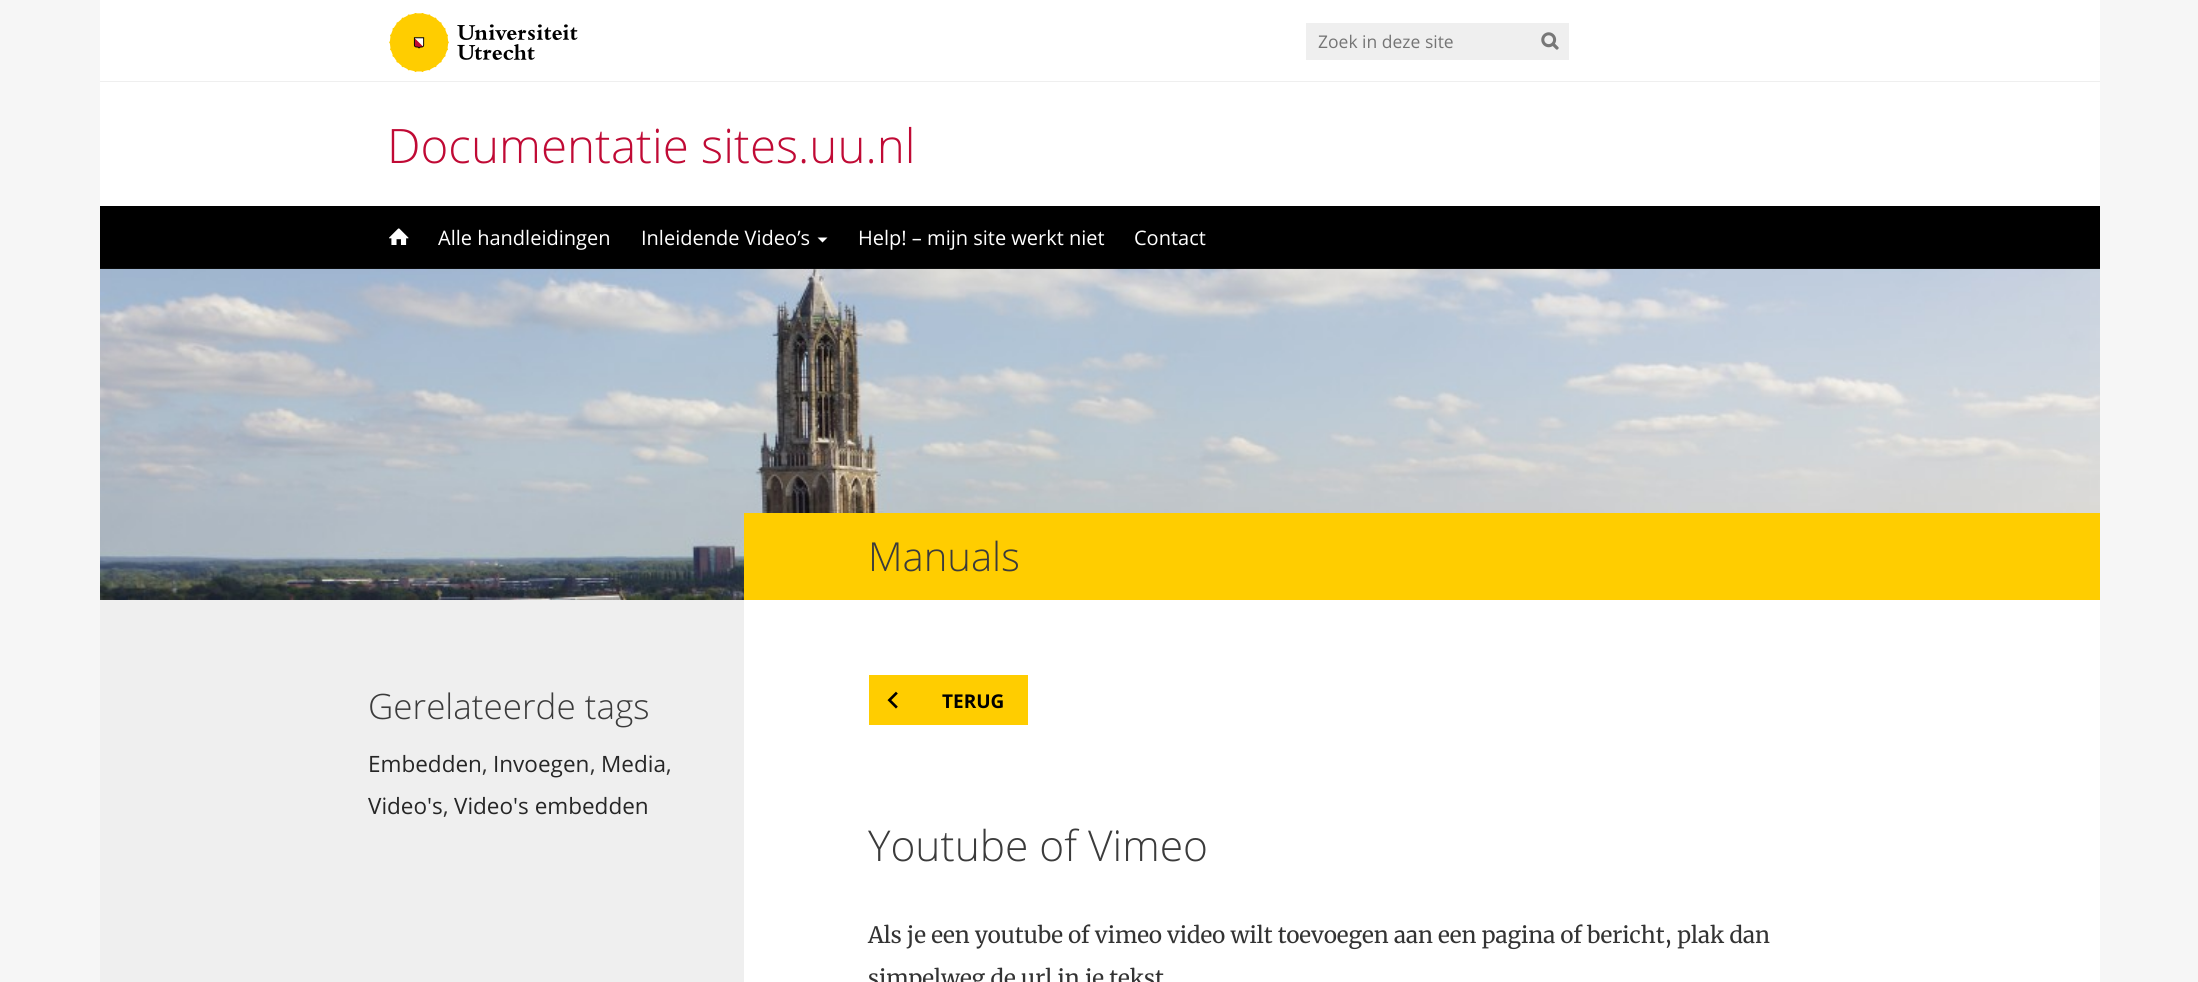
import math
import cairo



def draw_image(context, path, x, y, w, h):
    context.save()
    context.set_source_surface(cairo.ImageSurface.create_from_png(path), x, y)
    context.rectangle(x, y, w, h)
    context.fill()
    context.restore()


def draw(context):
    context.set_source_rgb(246 / 255, 246 / 255, 246 / 255)
    context.paint()
    context.set_source_rgb(1, 1, 1)
    context.rectangle(100, 0, 2000, 206)
    context.fill()
    context.set_source_rgb(239 / 255, 239 / 255, 239 / 255)
    context.rectangle(100, 81, 2000, 1)
    context.fill()
    draw_image(context, "images/1.png", 389, 13, 189, 59)
    context.rectangle(1306, 23, 263, 37)
    context.fill()
    draw_image(context, "images/2.png", 1541, 32, 18, 18)
    context.set_source_rgb(0, 0, 0)
    context.rectangle(100, 206, 2000, 63)
    context.fill()
    draw_image(context, "images/3.png", 389, 228, 20, 17)
    context.set_source_rgb(1, 1, 1)
    context.new_path()
    context.move_to(817.5, 237.5)
    context.line_to(827.5, 237.5)
    context.line_to(822.5, 242.5)
    context.close_path()
    context.fill()
    context.set_source_rgb(239 / 255, 239 / 255, 239 / 255)
    context.rectangle(100, 600, 644, 382)
    context.fill()
    context.set_source_rgb(1, 1, 1)
    context.rectangle(744, 600, 1356, 382)
    context.fill()
    draw_image(context, "images/4.png", 100, 268, 2000, 332)
    context.set_source_rgb(1, 205 / 255, 0)
    context.rectangle(744, 513, 1356, 87)
    context.fill()
    context.rectangle(869, 675, 159, 50)
    context.fill()
    draw_image(context, "images/5.png", 887, 691, 11, 18)
    context.select_font_face("Open Sans")
    context.set_font_size(17.5)
    context.set_source_rgb(117 / 255, 117 / 255, 117 / 255)
    context.move_to(1318, 48)
    context.show_text("Zoek in deze site")
    context.select_font_face("Open Sans Light")
    context.set_font_size(47.5)
    context.set_source_rgb(192 / 255, 10 / 255, 53 / 255)
    context.move_to(387, 163)
    context.show_text("Documentatie sites.uu.nl")
    context.select_font_face("Open Sans")
    context.set_font_size(20)
    context.set_source_rgb(1, 1, 1)
    context.move_to(438, 245)
    context.show_text("Alle handleidingen")
    context.move_to(641, 245)
    context.show_text("Inleidende Video’s")
    context.move_to(858, 245)
    context.show_text("Help! – mijn site werkt niet")
    context.move_to(1134, 245)
    context.show_text("Contact")
    context.select_font_face("Open Sans Light")
    context.set_font_size(35)
    context.set_source_rgb(59 / 255, 59 / 255, 59 / 255)
    context.move_to(368, 719)
    context.show_text("Gerelateerde tags")
    context.select_font_face("Open Sans")
    context.set_font_size(22.5)
    context.set_source_rgb(38 / 255, 38 / 255, 38 / 255)
    context.move_to(368, 772)
    context.show_text("Embedden")
    context.set_source_rgb(51 / 255, 51 / 255, 51 / 255)
    context.move_to(482, 772)
    context.show_text(",")
    context.set_source_rgb(38 / 255, 38 / 255, 38 / 255)
    context.move_to(493, 772)
    context.show_text("Invoegen")
    context.set_source_rgb(51 / 255, 51 / 255, 51 / 255)
    context.move_to(590, 772)
    context.show_text(",")
    context.set_source_rgb(38 / 255, 38 / 255, 38 / 255)
    context.move_to(601, 772)
    context.show_text("Media")
    context.set_source_rgb(51 / 255, 51 / 255, 51 / 255)
    context.move_to(666, 772)
    context.show_text(",")
    context.set_source_rgb(38 / 255, 38 / 255, 38 / 255)
    context.move_to(368, 814)
    context.show_text("Video's")
    context.set_source_rgb(51 / 255, 51 / 255, 51 / 255)
    context.move_to(443, 814)
    context.show_text(",")
    context.set_source_rgb(38 / 255, 38 / 255, 38 / 255)
    context.move_to(454, 814)
    context.show_text("Video's embedden")
    context.select_font_face("Open Sans Light")
    context.set_font_size(40)
    context.set_source_rgb(59 / 255, 59 / 255, 59 / 255)
    context.move_to(868, 571)
    context.show_text("Manuals")
    context.select_font_face("Open Sans", cairo.FontSlant.NORMAL, cairo.FontWeight.BOLD)
    context.set_font_size(19)
    context.set_source_rgb(0, 0, 0)
    context.move_to(942, 708)
    context.show_text("TERUG")
    context.select_font_face("Open Sans Light")
    context.set_font_size(42.5)
    context.set_source_rgb(59 / 255, 59 / 255, 59 / 255)
    context.move_to(868, 861)
    context.show_text("Youtube of Vimeo")
    context.select_font_face("Merriweather")
    context.set_font_size(22.5)
    context.set_source_rgb(51 / 255, 51 / 255, 51 / 255)
    context.move_to(868, 943)
    context.show_text("Als je een youtube of vimeo video wilt toevoegen aan een pagina of bericht, plak dan")
    context.move_to(868, 986)
    context.show_text("simpelweg de url in je tekst")


surface = cairo.ImageSurface(cairo.Format.RGB24, 2198, 982)
context = cairo.Context(surface)
options = cairo.FontOptions()
options.set_hint_metrics(cairo.HintMetrics.OFF)
options.set_hint_style(cairo.HintStyle.NONE)
context.set_font_options(options)
context.set_miter_limit(4)
draw(context)
surface.write_to_png("out.png")
